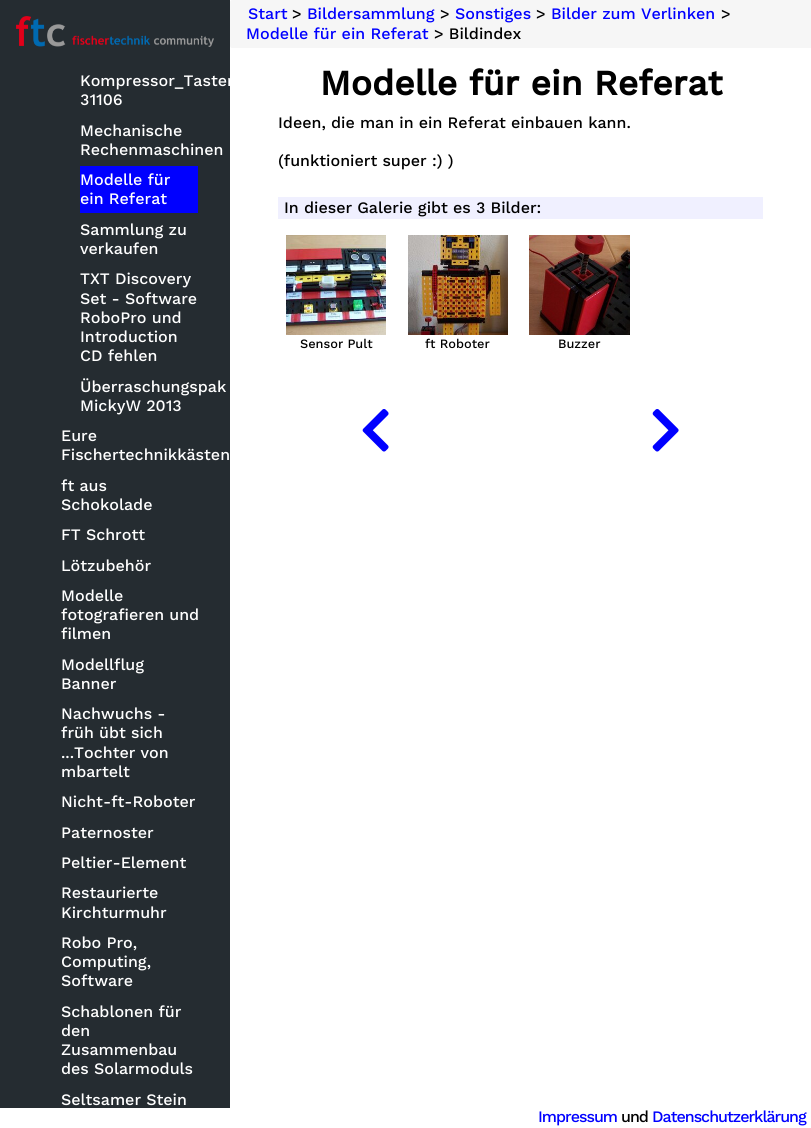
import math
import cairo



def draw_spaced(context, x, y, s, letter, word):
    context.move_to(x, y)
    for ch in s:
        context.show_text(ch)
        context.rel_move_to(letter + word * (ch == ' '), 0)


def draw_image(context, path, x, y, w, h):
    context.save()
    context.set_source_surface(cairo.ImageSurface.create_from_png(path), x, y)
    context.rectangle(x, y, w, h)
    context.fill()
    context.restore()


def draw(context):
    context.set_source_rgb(1, 1, 1)
    context.paint()
    context.set_source_rgb(37 / 255, 44 / 255, 49 / 255)
    context.rectangle(0, 0, 230, 1108)
    context.fill()
    draw_image(context, "images/1.png", 16, 16, 198, 31)
    context.set_source_rgb(0, 0, 1)
    context.rectangle(80, 166, 118, 47)
    context.fill()
    context.set_source_rgb(246 / 255, 246 / 255, 246 / 255)
    context.new_path()
    context.move_to(232, 0)
    context.line_to(811, 0)
    context.line_to(811, 48)
    context.line_to(232, 48)
    context.curve_to(231, 48, 230, 47, 230, 46)
    context.line_to(230, 2)
    context.curve_to(230, 1, 231, 0, 232, 0)
    context.close_path()
    context.fill()
    context.set_source_rgb(240 / 255, 240 / 255, 1)
    context.rectangle(278, 197, 485, 22)
    context.fill()
    draw_image(context, "images/2.png", 286, 235, 100, 100)
    draw_image(context, "images/3.png", 408, 235, 100, 100)
    draw_image(context, "images/4.png", 529, 235, 101, 100)
    draw_image(context, "images/5.png", 362, 409, 27, 43)
    draw_image(context, "images/6.png", 652, 409, 27, 43)
    context.save()
    context.rectangle(0, 67, 230, 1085)
    context.clip()
    context.select_font_face("Work Sans Medium")
    context.set_font_size(16)
    context.set_source_rgb(1, 1, 1)
    context.move_to(80, 86)
    context.show_text("Kompressor_Taster")
    context.restore()
    context.select_font_face("Work Sans Medium")
    context.set_font_size(16)
    context.set_source_rgb(1, 1, 1)
    context.move_to(80, 105)
    context.show_text("31106")
    context.move_to(80, 136)
    context.show_text("Mechanische")
    context.move_to(80, 155)
    context.show_text("Rechenmaschinen")
    context.move_to(80, 185)
    context.show_text("Modelle für")
    context.move_to(80, 204)
    context.show_text("ein Referat")
    context.move_to(80, 235)
    context.show_text("Sammlung zu")
    context.move_to(80, 254)
    context.show_text("verkaufen")
    context.move_to(80, 284)
    context.show_text("TXT Discovery")
    context.move_to(80, 304)
    context.show_text("Set - Software")
    context.move_to(80, 323)
    context.show_text("RoboPro und")
    context.move_to(80, 342)
    context.show_text("Introduction")
    context.move_to(80, 361)
    context.show_text("CD fehlen")
    context.move_to(80, 392)
    context.show_text("Überraschungspak")
    context.move_to(80, 411)
    context.show_text("MickyW 2013")
    context.move_to(61, 441)
    context.show_text("Eure")
    context.move_to(61, 460)
    context.show_text("Fischertechnikkästen")
    context.move_to(61, 491)
    context.show_text("ft aus")
    context.move_to(61, 510)
    context.show_text("Schokolade")
    context.move_to(61, 540)
    context.show_text("FT Schrott")
    context.move_to(61, 571)
    context.show_text("Lötzubehör")
    context.move_to(61, 601)
    context.show_text("Modelle")
    context.move_to(61, 620)
    context.show_text("fotografieren und")
    context.move_to(61, 639)
    context.show_text("filmen")
    context.move_to(61, 670)
    context.show_text("Modellflug")
    context.move_to(61, 689)
    context.show_text("Banner")
    context.move_to(61, 719)
    context.show_text("Nachwuchs -")
    context.move_to(61, 738)
    context.show_text("früh übt sich")
    context.move_to(61, 758)
    context.show_text("...Tochter von")
    context.move_to(61, 777)
    context.show_text("mbartelt")
    context.move_to(61, 807)
    context.show_text("Nicht-ft-Roboter")
    context.move_to(61, 838)
    context.show_text("Paternoster")
    context.move_to(61, 868)
    context.show_text("Peltier-Element")
    context.move_to(61, 898)
    context.show_text("Restaurierte")
    context.move_to(61, 918)
    context.show_text("Kirchturmuhr")
    context.move_to(61, 948)
    context.show_text("Robo Pro,")
    context.move_to(61, 967)
    context.show_text("Computing,")
    context.move_to(61, 986)
    context.show_text("Software")
    context.move_to(61, 1017)
    context.show_text("Schablonen für")
    context.move_to(61, 1036)
    context.show_text("den")
    context.move_to(61, 1055)
    context.show_text("Zusammenbau")
    context.move_to(61, 1074)
    context.show_text("des Solarmoduls")
    context.move_to(61, 1105)
    context.show_text("Seltsamer Stein")
    context.set_source_rgb(0, 0, 1)
    context.move_to(248, 19)
    context.show_text("Start")
    context.set_source_rgb(0, 0, 0)
    context.move_to(292, 19)
    context.show_text(">")
    context.set_source_rgb(0, 0, 1)
    context.move_to(307, 19)
    context.show_text("Bildersammlung")
    context.set_source_rgb(0, 0, 0)
    context.move_to(440, 19)
    context.show_text(">")
    context.set_source_rgb(0, 0, 1)
    context.move_to(455, 19)
    context.show_text("Sonstiges")
    context.set_source_rgb(0, 0, 0)
    context.move_to(536, 19)
    context.show_text(">")
    context.set_source_rgb(0, 0, 1)
    context.move_to(551, 19)
    context.show_text("Bilder zum Verlinken")
    context.set_source_rgb(0, 0, 0)
    context.move_to(721, 19)
    context.show_text(">")
    context.set_source_rgb(0, 0, 1)
    context.move_to(246, 39)
    context.show_text("Modelle für ein Referat")
    context.set_source_rgb(0, 0, 0)
    context.move_to(434, 39)
    context.show_text("> Bildindex")
    context.select_font_face("Work Sans", cairo.FontSlant.NORMAL, cairo.FontWeight.BOLD)
    context.set_font_size(35.25)
    context.move_to(320, 95)
    context.show_text("Modelle für ein Referat")
    context.select_font_face("Work Sans Medium")
    context.set_font_size(16)
    context.move_to(278, 128)
    context.show_text("Ideen, die man in ein Referat einbauen kann.")
    context.move_to(278, 166)
    context.show_text("(funktioniert super :) )")
    context.move_to(284, 213)
    context.show_text("In dieser Galerie gibt es 3 Bilder:")
    context.set_font_size(12.75)
    context.move_to(300, 348)
    context.show_text("Sensor Pult")
    context.move_to(425, 348)
    context.show_text("ft Roboter")
    context.move_to(558, 348)
    context.show_text("Buzzer")
    context.set_font_size(16)
    context.set_source_rgb(0, 0, 1)
    draw_spaced(context, 538, 1122, "Impressum", -1, 0)
    context.set_source_rgb(0, 0, 0)
    draw_spaced(context, 621, 1122, "und", -1, 0)
    context.set_source_rgb(0, 0, 1)
    draw_spaced(context, 652, 1122, "Datenschutzerklärung", -1, 0)


surface = cairo.ImageSurface(cairo.Format.RGB24, 811, 1128)
context = cairo.Context(surface)
options = cairo.FontOptions()
options.set_hint_metrics(cairo.HintMetrics.OFF)
options.set_hint_style(cairo.HintStyle.NONE)
context.set_font_options(options)
context.set_miter_limit(4)
draw(context)
surface.write_to_png("out.png")
